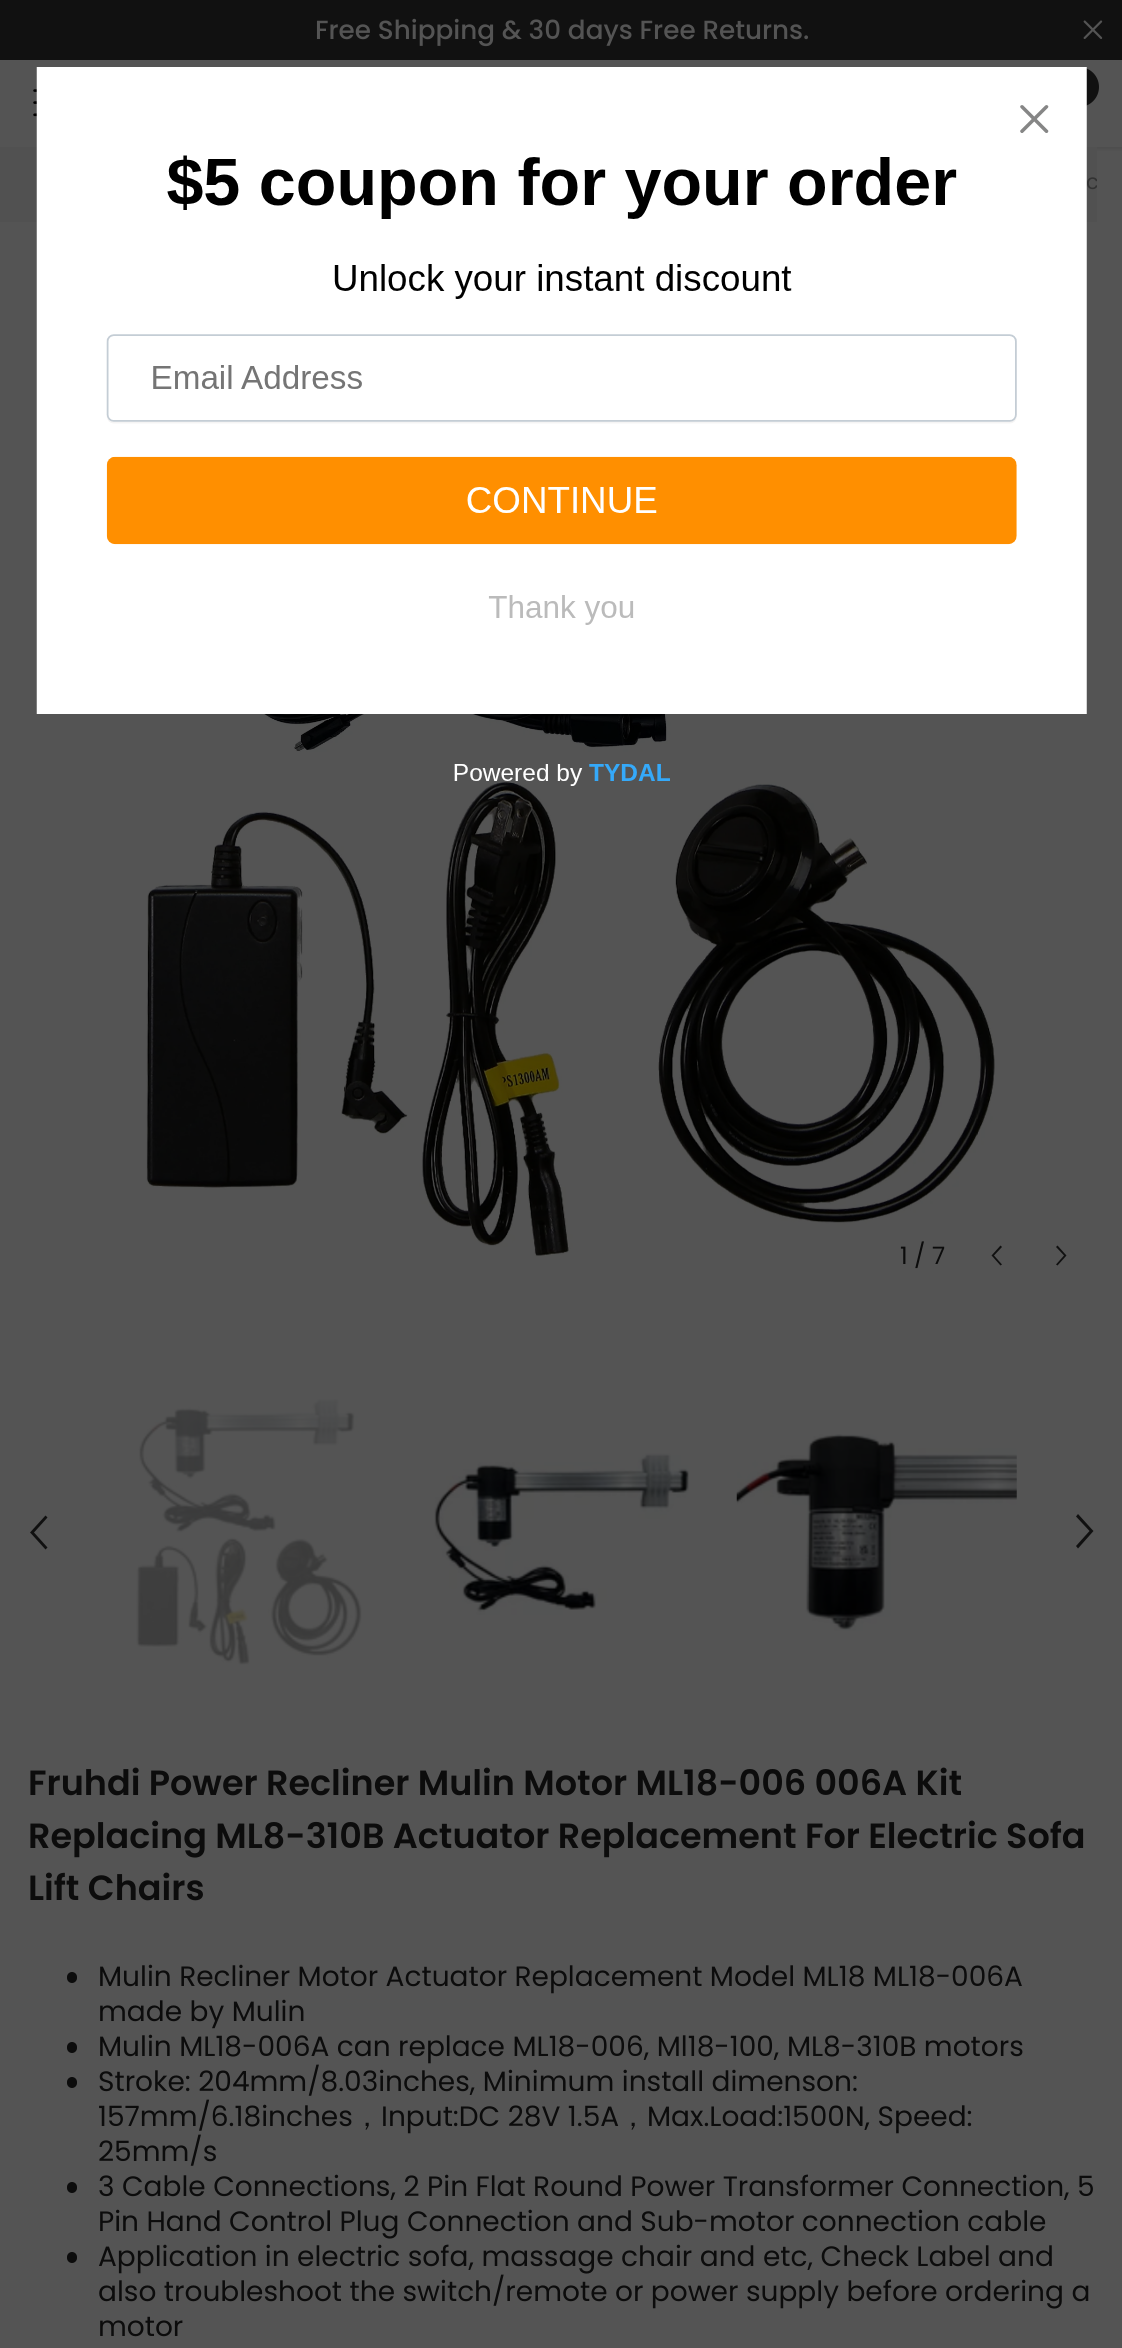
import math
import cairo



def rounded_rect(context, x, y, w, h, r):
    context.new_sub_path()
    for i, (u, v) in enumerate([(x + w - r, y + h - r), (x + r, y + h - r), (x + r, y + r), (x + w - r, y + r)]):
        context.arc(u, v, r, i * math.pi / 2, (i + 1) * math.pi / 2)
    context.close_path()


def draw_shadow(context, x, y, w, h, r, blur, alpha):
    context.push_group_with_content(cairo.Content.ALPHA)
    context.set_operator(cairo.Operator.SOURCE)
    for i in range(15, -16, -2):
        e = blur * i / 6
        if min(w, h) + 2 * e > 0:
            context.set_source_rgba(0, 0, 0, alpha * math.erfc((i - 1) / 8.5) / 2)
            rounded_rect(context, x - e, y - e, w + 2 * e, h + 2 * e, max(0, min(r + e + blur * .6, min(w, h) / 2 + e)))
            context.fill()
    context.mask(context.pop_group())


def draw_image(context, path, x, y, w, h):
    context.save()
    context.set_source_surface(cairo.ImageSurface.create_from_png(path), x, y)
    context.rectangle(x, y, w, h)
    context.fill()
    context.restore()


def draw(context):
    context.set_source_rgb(1, 1, 1)
    context.paint()
    context.set_source_rgb(51 / 255, 51 / 255, 51 / 255)
    context.rectangle(0, 0, 1122, 60)
    context.fill()
    draw_image(context, "images/2.png", 1083, 20, 20, 19)
    context.save()
    context.rectangle(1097, 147, 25, 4)
    context.clip()
    context.set_source_rgb(0, 0, 0)
    draw_shadow(context, 0, 61, 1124, 88, 0, 2.5, 0.1)
    context.restore()
    draw_image(context, "images/3.png", 33, 89, 4, 28)
    context.arc(1079, 87, 20, 0, 2 * math.pi)
    context.fill()
    context.set_source_rgb(246 / 255, 246 / 255, 246 / 255)
    context.rectangle(0, 147, 1097, 75)
    context.fill()
    draw_image(context, "images/4.png", 146, 714, 849, 543)
    context.set_source_rgb(50 / 255, 50 / 255, 50 / 255)
    context.new_path()
    context.move_to(1000.5, 1265.5)
    context.line_to(1002, 1264.5)
    context.line_to(994, 1255.5)
    context.line_to(1002, 1247)
    context.line_to(1000.5, 1245.5)
    context.line_to(991.5, 1255.5)
    context.line_to(992, 1256)
    context.close_path()
    context.fill()
    context.new_path()
    context.move_to(1057.5, 1245.5)
    context.line_to(1056, 1247)
    context.line_to(1064, 1255.5)
    context.line_to(1056, 1264.5)
    context.line_to(1057.5, 1265.5)
    context.line_to(1066.5, 1255.5)
    context.line_to(1066, 1255)
    context.close_path()
    context.fill()
    context.new_path()
    context.move_to(45.5, 1549.5)
    context.line_to(47.5, 1547.5)
    context.line_to(34, 1532.5)
    context.line_to(47.5, 1517.5)
    context.line_to(45.5, 1515.5)
    context.line_to(30, 1532.5)
    context.line_to(31, 1533.5)
    context.close_path()
    context.fill()
    draw_image(context, "images/5.png", 136, 1399, 226, 266)
    draw_image(context, "images/6.png", 434, 1453, 255, 162)
    draw_image(context, "images/7.png", 736, 1434, 281, 197)
    context.new_path()
    context.move_to(1078, 1514)
    context.line_to(1076, 1516.5)
    context.line_to(1089.5, 1531)
    context.line_to(1076, 1546)
    context.line_to(1078, 1548.5)
    context.line_to(1093.5, 1531)
    context.line_to(1092.5, 1530)
    context.close_path()
    context.fill()
    context.set_source_rgb(35 / 255, 35 / 255, 35 / 255)
    rounded_rect(context, 67, 1972, 10, 11, 5)
    context.fill()
    rounded_rect(context, 67, 2042, 10, 11, 5)
    context.fill()
    rounded_rect(context, 67, 2077, 10, 11, 5)
    context.fill()
    rounded_rect(context, 67, 2182, 10, 11, 5)
    context.fill()
    rounded_rect(context, 67, 2252, 10, 11, 5)
    context.fill()
    context.select_font_face("Poppins Medium")
    context.set_font_size(26.25)
    context.set_source_rgb(1, 1, 1)
    context.move_to(315, 39)
    context.show_text("Free Shipping & 30 days Free Returns.")
    context.save()
    context.rectangle(0, 147, 1097, 70)
    context.clip()
    context.select_font_face("Poppins")
    context.set_font_size(21)
    context.set_source_rgb(153 / 255, 153 / 255, 153 / 255)
    context.move_to(1086, 189)
    context.show_text("c")
    context.restore()
    context.select_font_face("Poppins")
    context.set_font_size(24)
    context.set_source_rgb(35 / 255, 35 / 255, 35 / 255)
    context.move_to(900, 1264)
    context.show_text("1 / 7")
    context.select_font_face("Poppins SemiBold")
    context.set_font_size(35)
    context.move_to(28, 1795)
    context.show_text("Fruhdi Power Recliner Mulin Motor ML18-006 006A Kit")
    context.move_to(28, 1848)
    context.show_text("Replacing ML8-310B Actuator Replacement For Electric Sofa")
    context.move_to(28, 1900)
    context.show_text("Lift Chairs")
    context.select_font_face("Poppins")
    context.set_font_size(28)
    context.move_to(98, 1986)
    context.show_text("Mulin Recliner Motor Actuator Replacement Model ML18 ML18-006A")
    context.move_to(98, 2021)
    context.show_text("made by Mulin")
    context.move_to(98, 2056)
    context.show_text("Mulin ML18-006A can replace ML18-006, Ml18-100, ML8-310B motors")
    context.move_to(98, 2091)
    context.show_text("Stroke: 204mm/8.03inches, Minimum install dimenson:")
    context.move_to(98, 2126)
    context.show_text("157mm/6.18inches")
    context.select_font_face("WenQuanYi Zen Hei Medium")
    context.move_to(353, 2126)
    context.show_text("，")
    context.select_font_face("Poppins")
    context.move_to(381, 2126)
    context.show_text("Input:DC 28V 1.5A")
    context.select_font_face("WenQuanYi Zen Hei Medium")
    context.move_to(619, 2126)
    context.show_text("，")
    context.select_font_face("Poppins")
    context.move_to(647, 2126)
    context.show_text("Max.Load:1500N, Speed:")
    context.move_to(98, 2161)
    context.show_text("25mm/s")
    context.move_to(98, 2196)
    context.show_text("3 Cable Connections, 2 Pin Flat Round Power Transformer Connection, 5")
    context.move_to(98, 2231)
    context.show_text("Pin Hand Control Plug Connection and Sub-motor connection cable")
    context.move_to(98, 2266)
    context.show_text("Application in electric sofa, massage chair and etc, Check Label and")
    context.move_to(98, 2301)
    context.show_text("also troubleshoot the switch/remote or power supply before ordering a")
    context.move_to(98, 2336)
    context.show_text("motor")
    draw_image(context, "images/1.png", 0, 0, 1122, 2348)


surface = cairo.ImageSurface(cairo.Format.RGB24, 1122, 2348)
context = cairo.Context(surface)
options = cairo.FontOptions()
options.set_hint_metrics(cairo.HintMetrics.OFF)
options.set_hint_style(cairo.HintStyle.NONE)
context.set_font_options(options)
context.set_miter_limit(4)
draw(context)
surface.write_to_png("out.png")
